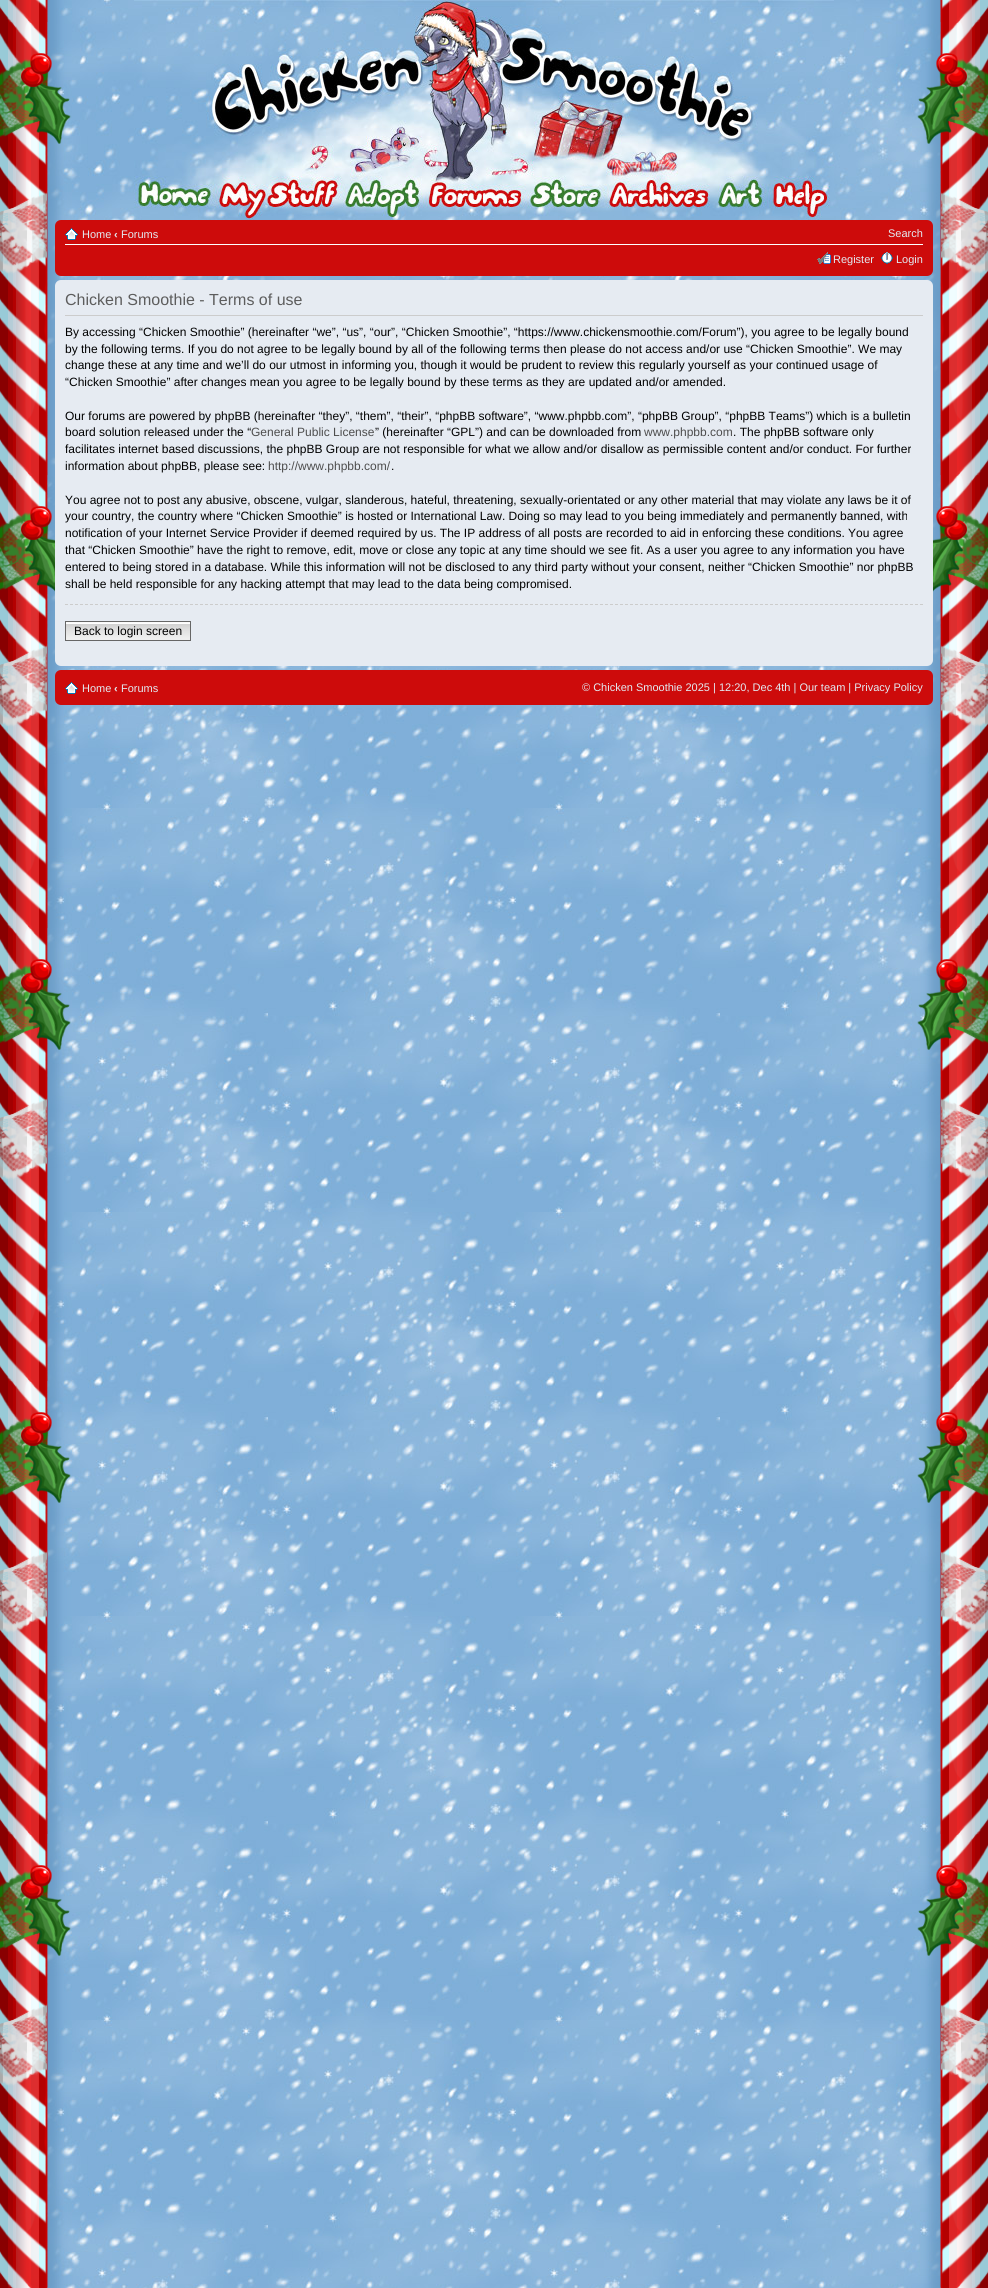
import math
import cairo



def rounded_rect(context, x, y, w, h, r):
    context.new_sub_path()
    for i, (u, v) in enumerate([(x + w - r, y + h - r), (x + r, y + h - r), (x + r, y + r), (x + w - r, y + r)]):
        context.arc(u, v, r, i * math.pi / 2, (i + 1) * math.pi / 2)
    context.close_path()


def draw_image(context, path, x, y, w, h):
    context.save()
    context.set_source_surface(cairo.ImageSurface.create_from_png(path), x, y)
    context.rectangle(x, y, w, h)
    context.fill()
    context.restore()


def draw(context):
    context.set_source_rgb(1, 1, 1)
    context.paint()
    draw_image(context, "images/1.png", 47, 0, 894, 2288)
    draw_image(context, "images/2.png", 0, 0, 71, 2288)
    draw_image(context, "images/3.png", 134, 0, 700, 220)
    draw_image(context, "images/8.png", 917, 0, 71, 2288)
    context.set_source_rgb(205 / 255, 11 / 255, 11 / 255)
    rounded_rect(context, 55, 220, 878, 56, 6)
    context.fill()
    context.set_source_rgb(1, 1, 1)
    context.rectangle(65, 244, 858, 1)
    context.fill()
    draw_image(context, "images/4.png", 65, 228, 13, 12)
    draw_image(context, "images/5.png", 817, 252, 14, 12)
    draw_image(context, "images/6.png", 881, 252, 12, 12)
    context.set_source_rgb(230 / 255, 235 / 255, 242 / 255)
    rounded_rect(context, 55, 280, 878, 386, 6)
    context.fill()
    context.set_source_rgb(204 / 255, 204 / 255, 204 / 255)
    context.rectangle(65, 315, 858, 1)
    context.fill()
    context.new_path()
    context.move_to(65, 604.5)
    context.line_to(923, 604.5)
    context.set_line_width(1)
    context.set_dash([3, 2])
    context.stroke()
    draw_image(context, "images/7.png", 66, 623, 124, 17)
    context.set_source_rgb(250 / 255, 250 / 255, 250 / 255)
    context.rectangle(66, 622, 124, 1)
    context.fill()
    context.rectangle(65.5, 621.5, 125, 19)
    context.set_source_rgb(102 / 255, 102 / 255, 102 / 255)
    context.set_dash([])
    context.stroke()
    context.set_source_rgb(205 / 255, 11 / 255, 11 / 255)
    rounded_rect(context, 55, 670, 878, 35, 6)
    context.fill()
    draw_image(context, "images/4.png", 65, 682, 13, 12)
    context.select_font_face("Liberation Sans")
    context.set_font_size(11)
    context.set_source_rgb(226 / 255, 235 / 255, 242 / 255)
    context.move_to(82, 238)
    context.show_text("Home")
    context.select_font_face("Liberation Sans", cairo.FontSlant.NORMAL, cairo.FontWeight.BOLD)
    context.move_to(114, 238)
    context.show_text("‹")
    context.select_font_face("Liberation Sans")
    context.move_to(121, 238)
    context.show_text("Forums")
    context.move_to(888, 237)
    context.show_text("Search")
    context.move_to(833, 263)
    context.show_text("Register")
    context.move_to(896, 263)
    context.show_text("Login")
    context.set_font_size(16)
    context.set_source_rgb(93 / 255, 93 / 255, 93 / 255)
    context.move_to(65, 305)
    context.show_text("Chicken Smoothie - Terms of use")
    context.set_font_size(12)
    context.set_source_rgb(0, 0, 0)
    context.move_to(65, 336)
    context.show_text("By accessing “Chicken Smoothie” (hereinafter “we”, “us”, “our”, “Chicken Smoothie”, “https://www.chickensmoothie.com/Forum”), you agree to be legally bound")
    context.move_to(65, 353)
    context.show_text("by the following terms. If you do not agree to be legally bound by all of the following terms then please do not access and/or use “Chicken Smoothie”. We may")
    context.move_to(65, 369)
    context.show_text("change these at any time and we’ll do our utmost in informing you, though it would be prudent to review this regularly yourself as your continued usage of")
    context.move_to(65, 386)
    context.show_text("“Chicken Smoothie” after changes mean you agree to be legally bound by these terms as they are updated and/or amended.")
    context.move_to(65, 420)
    context.show_text("Our forums are powered by phpBB (hereinafter “they”, “them”, “their”, “phpBB software”, “www.phpbb.com”, “phpBB Group”, “phpBB Teams”) which is a bulletin")
    context.move_to(65, 436)
    context.show_text("board solution released under the “")
    context.set_source_rgb(77 / 255, 77 / 255, 77 / 255)
    context.move_to(251, 436)
    context.show_text("General Public License")
    context.set_source_rgb(0, 0, 0)
    context.move_to(375, 436)
    context.show_text("” (hereinafter “GPL”) and can be downloaded from")
    context.set_source_rgb(77 / 255, 77 / 255, 77 / 255)
    context.move_to(644, 436)
    context.show_text("www.phpbb.com")
    context.set_source_rgb(0, 0, 0)
    context.move_to(733, 436)
    context.show_text(". The phpBB software only")
    context.move_to(65, 453)
    context.show_text("facilitates internet based discussions, the phpBB Group are not responsible for what we allow and/or disallow as permissible content and/or conduct. For further")
    context.move_to(65, 470)
    context.show_text("information about phpBB, please see:")
    context.set_source_rgb(77 / 255, 77 / 255, 77 / 255)
    context.move_to(268, 470)
    context.show_text("http://www.phpbb.com/")
    context.set_source_rgb(0, 0, 0)
    context.move_to(391, 470)
    context.show_text(".")
    context.move_to(65, 504)
    context.show_text("You agree not to post any abusive, obscene, vulgar, slanderous, hateful, threatening, sexually-orientated or any other material that may violate any laws be it of")
    context.move_to(65, 520)
    context.show_text("your country, the country where “Chicken Smoothie” is hosted or International Law. Doing so may lead to you being immediately and permanently banned, with")
    context.move_to(65, 537)
    context.show_text("notification of your Internet Service Provider if deemed required by us. The IP address of all posts are recorded to aid in enforcing these conditions. You agree")
    context.move_to(65, 554)
    context.show_text("that “Chicken Smoothie” have the right to remove, edit, move or close any topic at any time should we see fit. As a user you agree to any information you have")
    context.move_to(65, 571)
    context.show_text("entered to being stored in a database. While this information will not be disclosed to any third party without your consent, neither “Chicken Smoothie” nor phpBB")
    context.move_to(65, 588)
    context.show_text("shall be held responsible for any hacking attempt that may lead to the data being compromised.")
    context.move_to(74, 635)
    context.show_text("Back to login screen")
    context.set_font_size(11)
    context.set_source_rgb(226 / 255, 235 / 255, 242 / 255)
    context.move_to(82, 692)
    context.show_text("Home")
    context.select_font_face("Liberation Sans", cairo.FontSlant.NORMAL, cairo.FontWeight.BOLD)
    context.move_to(114, 692)
    context.show_text("‹")
    context.select_font_face("Liberation Sans")
    context.move_to(121, 692)
    context.show_text("Forums")
    context.move_to(582, 691)
    context.show_text("© Chicken Smoothie 2025 | 12:20, Dec 4th | Our team | Privacy Policy")


surface = cairo.ImageSurface(cairo.Format.RGB24, 988, 2288)
context = cairo.Context(surface)
options = cairo.FontOptions()
options.set_hint_metrics(cairo.HintMetrics.OFF)
options.set_hint_style(cairo.HintStyle.NONE)
context.set_font_options(options)
context.set_miter_limit(4)
draw(context)
surface.write_to_png("out.png")
